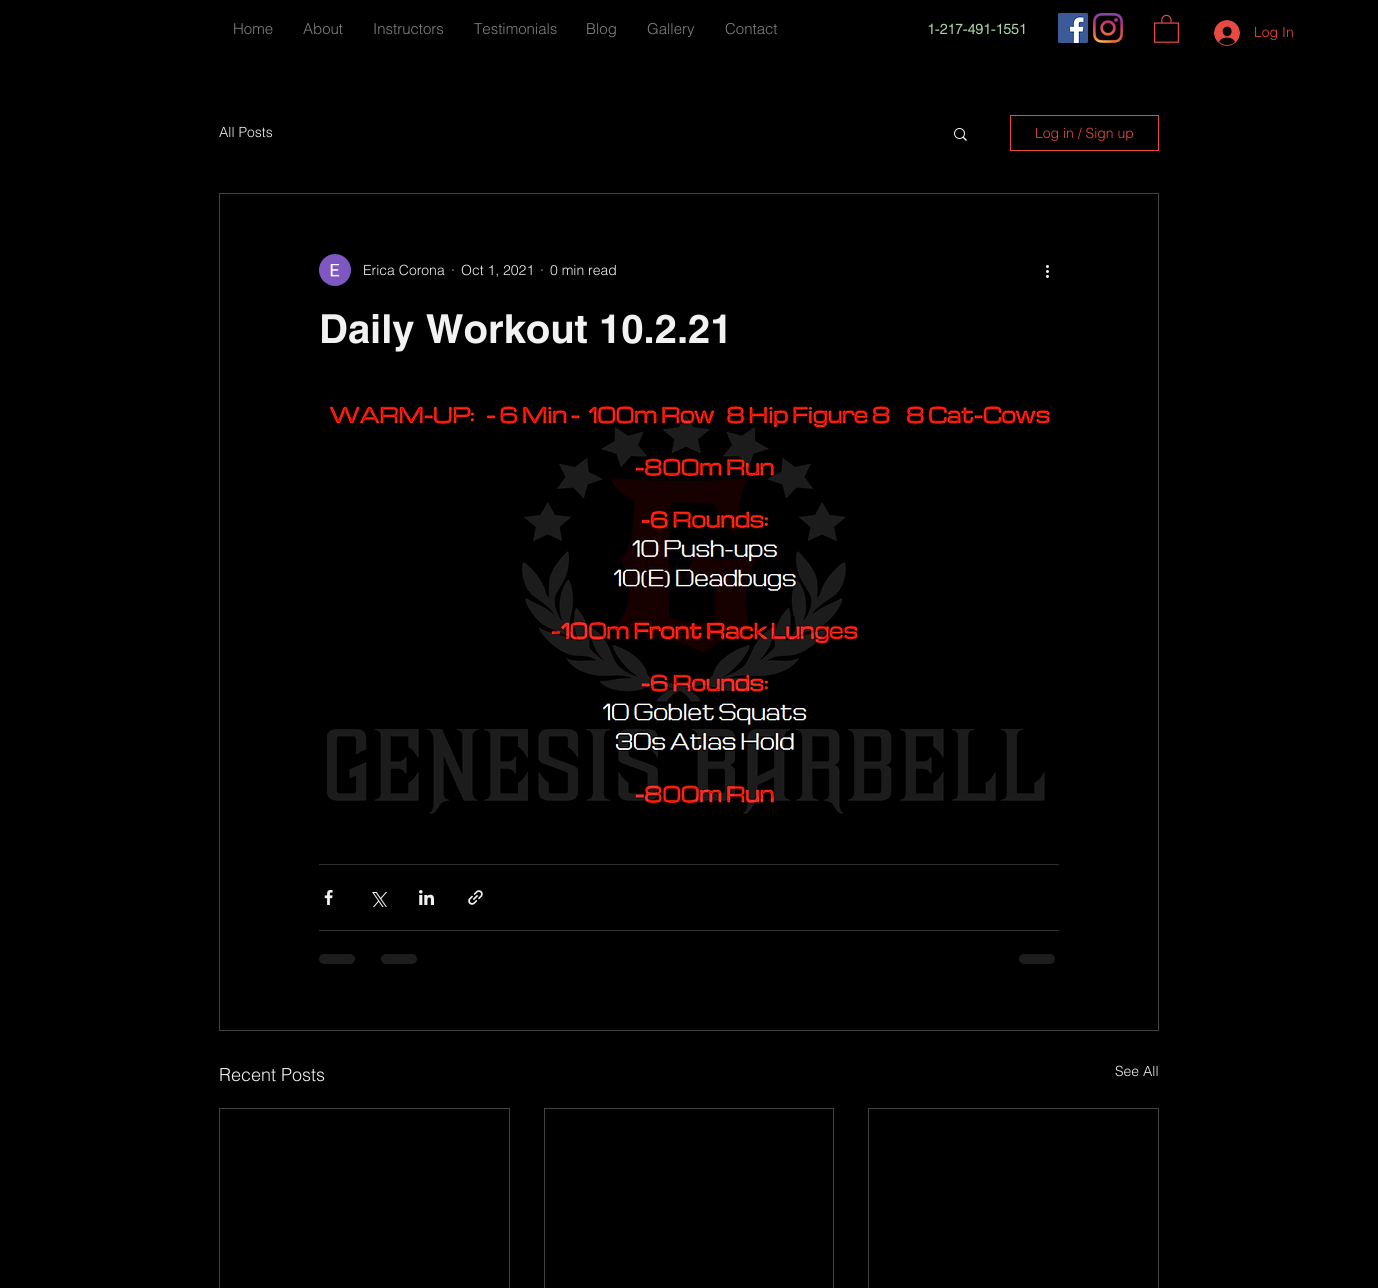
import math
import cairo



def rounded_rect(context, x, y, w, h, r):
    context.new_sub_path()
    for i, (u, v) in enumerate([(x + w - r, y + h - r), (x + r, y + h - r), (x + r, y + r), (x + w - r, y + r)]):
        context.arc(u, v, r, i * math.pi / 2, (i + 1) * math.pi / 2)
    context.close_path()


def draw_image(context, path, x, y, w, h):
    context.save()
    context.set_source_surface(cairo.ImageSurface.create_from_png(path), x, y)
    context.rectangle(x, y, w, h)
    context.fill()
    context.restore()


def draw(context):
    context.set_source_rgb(0, 0, 0)
    context.paint()
    draw_image(context, "images/1.png", 1058, 13, 30, 30)
    draw_image(context, "images/2.png", 1093, 13, 30, 30)
    draw_image(context, "images/3.png", 1154, 14, 25, 29)
    draw_image(context, "images/4.png", 1214, 20, 26, 26)
    draw_image(context, "images/5.png", 954, 128, 13, 13)
    context.rectangle(1010.5, 115.5, 148, 35)
    context.set_source_rgb(232 / 255, 74 / 255, 67 / 255)
    context.set_line_width(1)
    context.stroke()
    context.rectangle(219.5, 193.5, 939, 837)
    context.set_source_rgb(67 / 255, 66 / 255, 66 / 255)
    context.stroke()
    draw_image(context, "images/6.png", 319, 254, 32, 32)
    draw_image(context, "images/7.png", 1046, 265, 3, 13)
    draw_image(context, "images/8.png", 327, 406, 724, 408)
    context.set_source_rgb(48 / 255, 48 / 255, 48 / 255)
    context.rectangle(319, 864, 740, 1)
    context.fill()
    draw_image(context, "images/9.png", 324, 890, 9, 15)
    draw_image(context, "images/10.png", 372, 892, 15, 15)
    draw_image(context, "images/11.png", 419, 890, 15, 15)
    draw_image(context, "images/12.png", 468, 890, 15, 15)
    context.rectangle(319, 930, 740, 1)
    context.fill()
    context.set_source_rgb(29 / 255, 29 / 255, 29 / 255)
    rounded_rect(context, 319, 954, 36, 10, 5)
    context.fill()
    rounded_rect(context, 381, 954, 36, 10, 5)
    context.fill()
    rounded_rect(context, 1019, 954, 36, 10, 5)
    context.fill()
    context.rectangle(219.5, 1108.5, 290, 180)
    context.set_source_rgb(67 / 255, 66 / 255, 66 / 255)
    context.stroke()
    context.rectangle(544.5, 1108.5, 289, 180)
    context.stroke()
    context.rectangle(868.5, 1108.5, 290, 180)
    context.stroke()
    context.select_font_face("helvetica Light")
    context.set_font_size(15)
    context.set_source_rgb(130 / 255, 129 / 255, 129 / 255)
    context.move_to(233, 34)
    context.show_text("Home")
    context.move_to(303, 34)
    context.show_text("About")
    context.move_to(373, 34)
    context.show_text("Instructors")
    context.move_to(474, 34)
    context.show_text("Testimonials")
    context.move_to(586, 34)
    context.show_text("Blog")
    context.move_to(647, 34)
    context.show_text("Gallery")
    context.move_to(725, 34)
    context.show_text("Contact")
    context.select_font_face("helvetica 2", cairo.FontSlant.NORMAL, cairo.FontWeight.BOLD)
    context.set_font_size(14)
    context.set_source_rgb(172 / 255, 209 / 255, 163 / 255)
    context.move_to(927, 34)
    context.show_text("1-217-491-1551")
    context.select_font_face("helvetica Light")
    context.set_source_rgb(232 / 255, 74 / 255, 67 / 255)
    context.move_to(1254, 37)
    context.show_text("Log In")
    context.set_source_rgb(242 / 255, 242 / 255, 242 / 255)
    context.move_to(219, 137)
    context.show_text("All Posts")
    context.set_source_rgb(232 / 255, 74 / 255, 67 / 255)
    context.move_to(1035, 138)
    context.show_text("Log in / Sign up")
    context.set_source_rgb(242 / 255, 242 / 255, 242 / 255)
    context.move_to(363, 275)
    context.show_text("Erica Corona")
    context.move_to(451, 275)
    context.show_text("·")
    context.move_to(461, 275)
    context.show_text("Oct 1, 2021")
    context.move_to(540, 275)
    context.show_text("·")
    context.move_to(550, 275)
    context.show_text("0 min read")
    context.select_font_face("helvetica", cairo.FontSlant.NORMAL, cairo.FontWeight.BOLD)
    context.set_font_size(40)
    context.move_to(319, 343)
    context.show_text("Daily Workout 10.2.21")
    context.select_font_face("helvetica Light")
    context.set_font_size(18)
    context.move_to(219, 1081)
    context.show_text("Recent Posts")
    context.set_font_size(14)
    context.move_to(1115, 1076)
    context.show_text("See All")


surface = cairo.ImageSurface(cairo.Format.RGB24, 1378, 1288)
context = cairo.Context(surface)
options = cairo.FontOptions()
options.set_hint_metrics(cairo.HintMetrics.OFF)
options.set_hint_style(cairo.HintStyle.NONE)
context.set_font_options(options)
context.set_miter_limit(4)
draw(context)
surface.write_to_png("out.png")
